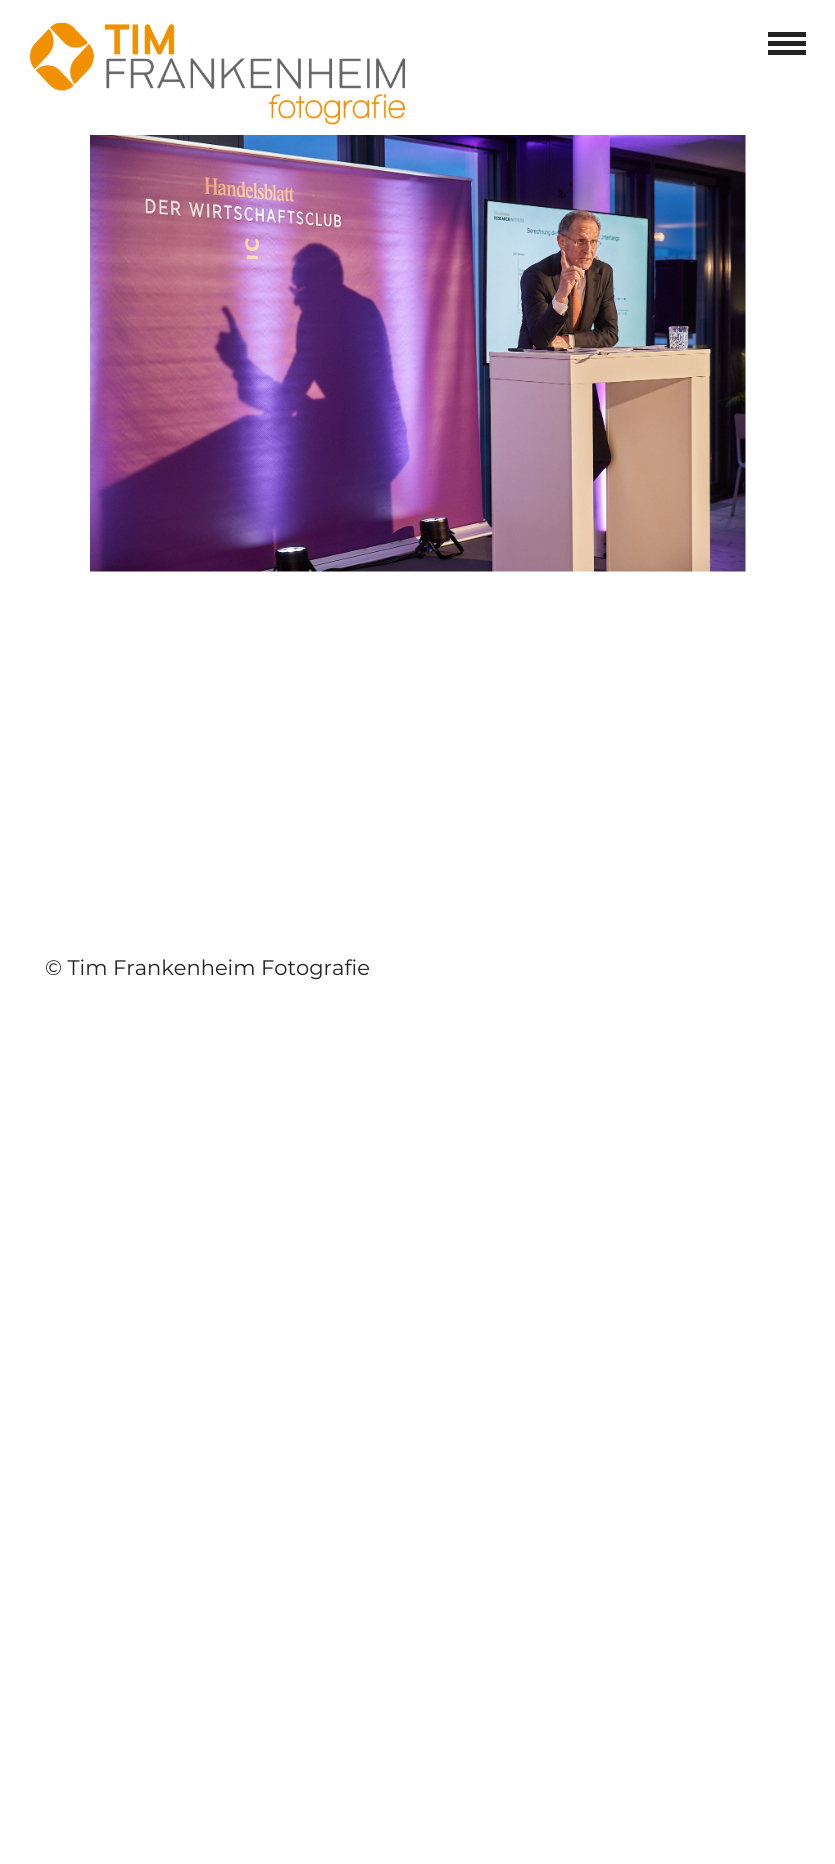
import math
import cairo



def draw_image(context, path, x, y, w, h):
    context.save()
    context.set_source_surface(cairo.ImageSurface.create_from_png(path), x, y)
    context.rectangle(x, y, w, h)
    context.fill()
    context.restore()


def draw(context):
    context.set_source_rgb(1, 1, 1)
    context.paint()
    draw_image(context, "images/1.png", 30, 23, 375, 102)
    context.set_source_rgb(34 / 255, 34 / 255, 34 / 255)
    context.rectangle(768, 32, 38, 5)
    context.fill()
    context.rectangle(768, 41, 38, 5)
    context.fill()
    context.rectangle(768, 50, 38, 5)
    context.fill()
    draw_image(context, "images/2.png", 90, 135, 656, 437)
    context.select_font_face("Montserrat")
    context.set_font_size(21)
    context.move_to(45, 975)
    context.show_text("© Tim Frankenheim Fotografie")


surface = cairo.ImageSurface(cairo.Format.RGB24, 835, 1864)
context = cairo.Context(surface)
options = cairo.FontOptions()
options.set_hint_metrics(cairo.HintMetrics.OFF)
options.set_hint_style(cairo.HintStyle.NONE)
context.set_font_options(options)
context.set_miter_limit(4)
draw(context)
surface.write_to_png("out.png")
